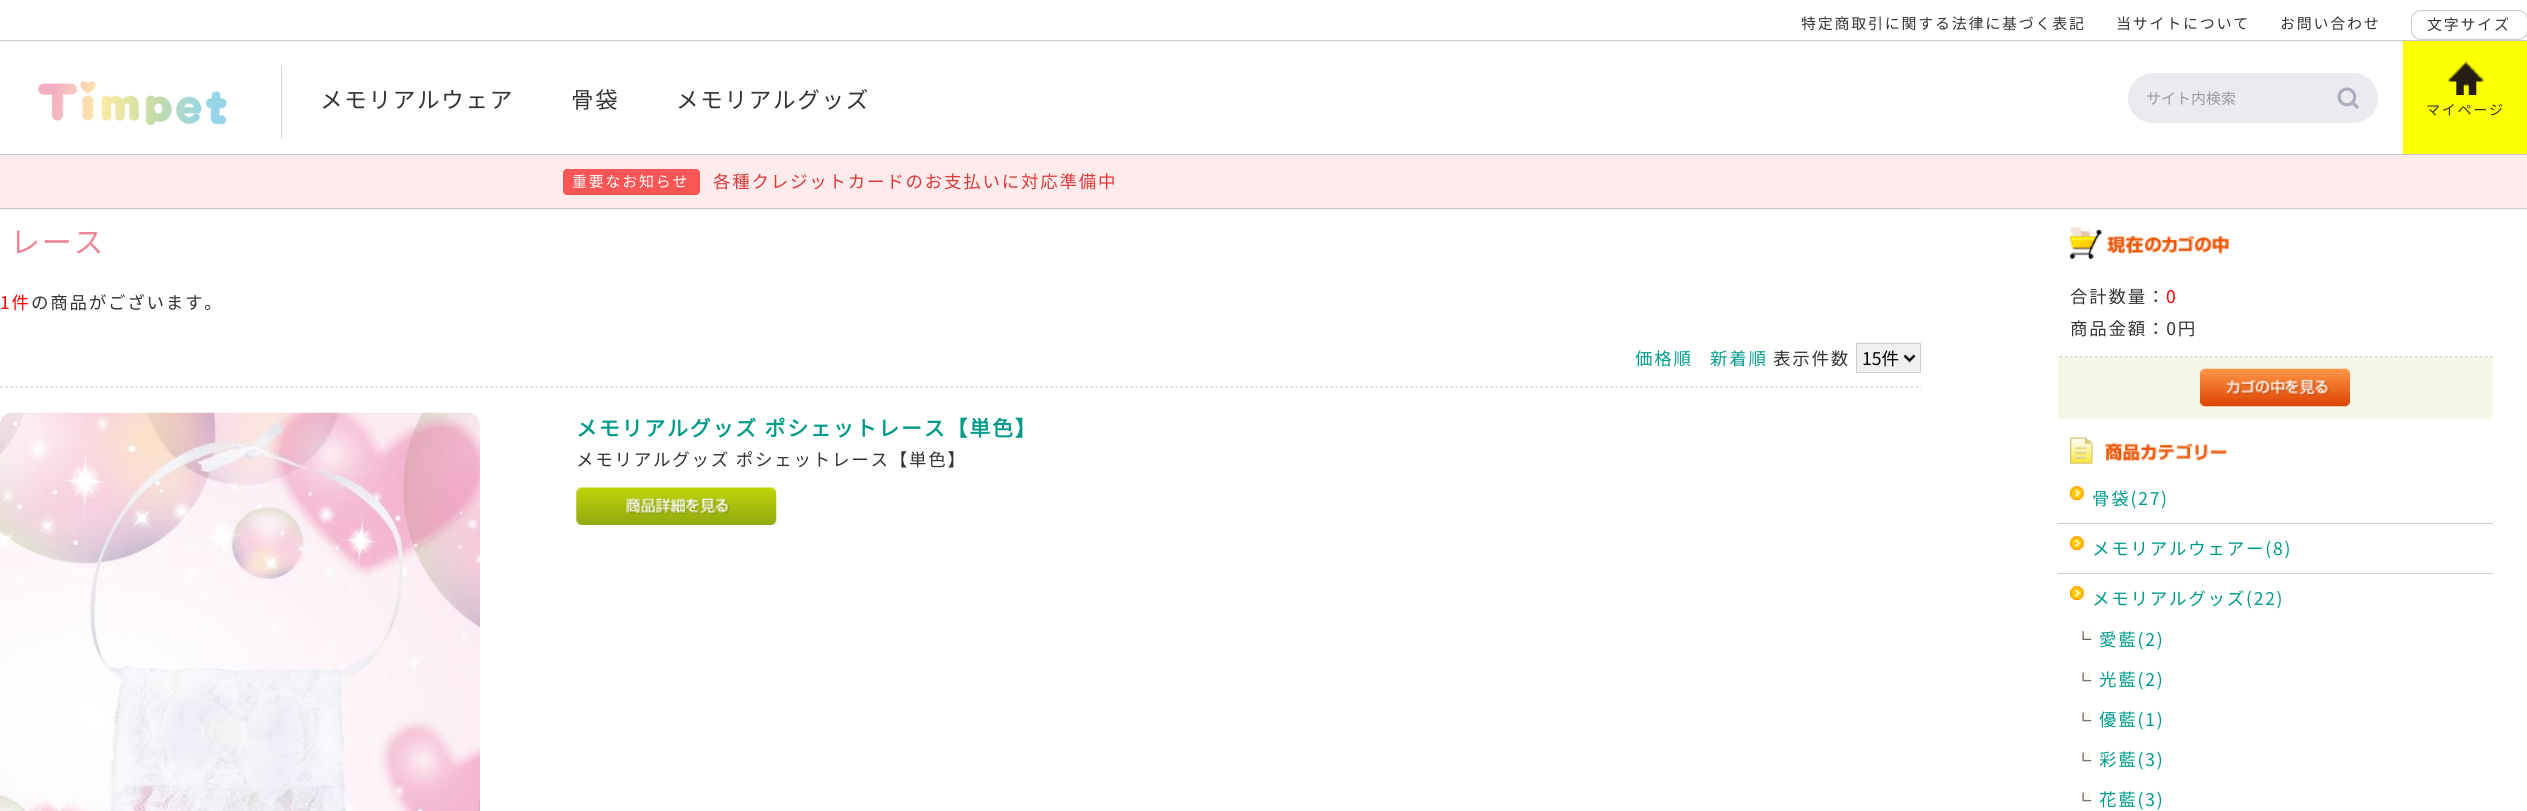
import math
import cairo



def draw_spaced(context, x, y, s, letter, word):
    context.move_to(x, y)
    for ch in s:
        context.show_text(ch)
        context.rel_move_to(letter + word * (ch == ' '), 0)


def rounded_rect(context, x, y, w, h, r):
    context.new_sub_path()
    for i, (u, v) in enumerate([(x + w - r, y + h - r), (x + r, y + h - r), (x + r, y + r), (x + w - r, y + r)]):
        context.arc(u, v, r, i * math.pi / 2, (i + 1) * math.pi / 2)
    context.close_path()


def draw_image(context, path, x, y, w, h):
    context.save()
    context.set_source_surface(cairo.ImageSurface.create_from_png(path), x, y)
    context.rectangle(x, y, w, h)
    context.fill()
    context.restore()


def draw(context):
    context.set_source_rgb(1, 1, 1)
    context.paint()
    context.set_source_rgb(198 / 255, 201 / 255, 211 / 255)
    context.rectangle(0, 40, 2527, 1)
    context.fill()
    rounded_rect(context, 2411.5, 10.5, 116, 29, 9.5)
    context.set_line_width(1)
    context.stroke()
    context.set_source_rgb(208 / 255, 210 / 255, 219 / 255)
    context.rectangle(281, 66, 1, 73)
    context.fill()
    draw_image(context, "images/1.png", 38, 81, 189, 44)
    context.set_source_rgb(234 / 255, 234 / 255, 240 / 255)
    rounded_rect(context, 2128, 73, 250, 50, 25)
    context.fill()
    draw_image(context, "images/2.png", 2337, 87, 22, 22)
    context.set_source_rgb(252 / 255, 1, 0)
    context.rectangle(2403, 41, 124, 113)
    context.fill()
    draw_image(context, "images/3.png", 2447, 60, 37, 35)
    context.set_source_rgb(1, 235 / 255, 235 / 255)
    context.rectangle(0, 155, 2527, 53)
    context.fill()
    context.set_source_rgb(198 / 255, 201 / 255, 211 / 255)
    context.rectangle(0, 154, 2527, 1)
    context.fill()
    context.rectangle(0, 208, 2527, 1)
    context.fill()
    context.set_source_rgb(251 / 255, 86 / 255, 86 / 255)
    rounded_rect(context, 563, 169, 137, 26, 4)
    context.fill()
    context.set_source_rgb(235 / 255, 236 / 255, 237 / 255)
    context.rectangle(0, 209, 1921, 1)
    context.fill()
    draw_image(context, "images/4.png", 0, 386, 1922, 2)
    context.set_source_rgb(239 / 255, 239 / 255, 239 / 255)
    context.rectangle(1856.5, 343.5, 64, 29)
    context.fill_preserve()
    context.set_source_rgb(204 / 255, 204 / 255, 204 / 255)
    context.stroke()
    context.new_path()
    context.move_to(1904.5, 355.5)
    context.line_to(1909.5, 360.5)
    context.line_to(1914.5, 355.5)
    context.set_source_rgb(0, 0, 0)
    context.set_line_width(2.5)
    context.stroke()
    draw_image(context, "images/5.png", 0, 412, 480, 399)
    draw_image(context, "images/6.png", 576, 487, 201, 38)
    draw_image(context, "images/7.png", 2070, 227, 159, 32)
    context.set_source_rgb(247 / 255, 247 / 255, 230 / 255)
    context.rectangle(2058, 356, 435, 63)
    context.fill()
    draw_image(context, "images/8.png", 2057, 356, 436, 2)
    draw_image(context, "images/9.png", 2200, 368, 150, 39)
    draw_image(context, "images/10.png", 2070, 437, 157, 27)
    context.set_source_rgb(204 / 255, 204 / 255, 204 / 255)
    context.rectangle(2058, 523, 435, 1)
    context.fill()
    draw_image(context, "images/11.png", 2070, 486, 14, 14)
    context.rectangle(2058, 573, 435, 1)
    context.fill()
    draw_image(context, "images/11.png", 2070, 536, 14, 14)
    draw_image(context, "images/12.png", 2070, 586, 14, 14)
    draw_image(context, "images/13.png", 2082, 631, 10, 9)
    draw_image(context, "images/14.png", 2082, 672, 10, 10)
    draw_image(context, "images/14.png", 2082, 712, 10, 10)
    draw_image(context, "images/14.png", 2082, 752, 10, 10)
    draw_image(context, "images/14.png", 2082, 792, 10, 10)
    context.select_font_face("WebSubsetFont")
    context.set_font_size(15)
    context.set_source_rgb(51 / 255, 51 / 255, 51 / 255)
    draw_spaced(context, 1801, 29, "特定商取引に関する法律に基づく表記", 1.75, 0)
    draw_spaced(context, 2116, 29, "当サイトについて", 1.75, 0)
    draw_spaced(context, 2280, 29, "お問い合わせ", 1.75, 0)
    draw_spaced(context, 2427, 30, "文字サイズ", 1.75, 0)
    context.set_font_size(22.5)
    draw_spaced(context, 320, 108, "メモリアルウェア", 1.75, 0)
    draw_spaced(context, 571, 108, "骨袋", 1.75, 0)
    draw_spaced(context, 676, 108, "メモリアルグッズ", 1.75, 0)
    context.set_font_size(15)
    context.set_source_rgb(153 / 255, 153 / 255, 153 / 255)
    context.move_to(2146, 104)
    context.show_text("サイト内検索")
    context.set_font_size(14)
    context.set_source_rgb(51 / 255, 51 / 255, 51 / 255)
    draw_spaced(context, 2426, 115, "マイページ", 1.75, 0)
    context.set_font_size(15)
    context.set_source_rgb(1, 1, 1)
    draw_spaced(context, 572, 187, "重要なお知らせ", 1.75, 0)
    context.set_font_size(17.5)
    context.set_source_rgb(220 / 255, 56 / 255, 56 / 255)
    draw_spaced(context, 713, 188, "各種クレジットカードのお支払いに対応準備中", 1.75, 0)
    context.set_font_size(30)
    context.set_source_rgb(239 / 255, 134 / 255, 152 / 255)
    draw_spaced(context, 10, 253, "レース", 1.75, 0)
    context.set_font_size(17.5)
    context.set_source_rgb(1, 0, 0)
    draw_spaced(context, 0, 309, "1件", 1.75, 0)
    context.set_source_rgb(51 / 255, 51 / 255, 51 / 255)
    draw_spaced(context, 31, 309, "の商品がございます。", 1.75, 0)
    context.set_source_rgb(0, 154 / 255, 139 / 255)
    draw_spaced(context, 1635, 365, "価格順", 1.75, 0)
    draw_spaced(context, 1710, 365, "新着順", 1.75, 0)
    context.set_source_rgb(51 / 255, 51 / 255, 51 / 255)
    draw_spaced(context, 1773, 365, "表示件数", 1.75, 0)
    context.set_source_rgb(0, 0, 0)
    context.move_to(1862, 365)
    context.show_text("15件")
    context.select_font_face("WebSubsetFont", cairo.FontSlant.NORMAL, cairo.FontWeight.BOLD)
    context.set_font_size(21)
    context.set_source_rgb(0, 154 / 255, 139 / 255)
    draw_spaced(context, 576, 436, "メモリアルグッズ ポシェットレース【単色】", 1.75, 0)
    context.select_font_face("WebSubsetFont")
    context.set_font_size(17.5)
    context.set_source_rgb(51 / 255, 51 / 255, 51 / 255)
    draw_spaced(context, 576, 466, "メモリアルグッズ ポシェットレース【単色】", 1.75, 0)
    draw_spaced(context, 2070, 303, "合計数量：", 1.75, 0)
    context.set_source_rgb(1, 0, 0)
    draw_spaced(context, 2166, 303, "0", 1.75, 0)
    context.set_source_rgb(51 / 255, 51 / 255, 51 / 255)
    draw_spaced(context, 2070, 335, "商品金額：0円", 1.75, 0)
    context.set_source_rgb(0, 154 / 255, 139 / 255)
    draw_spaced(context, 2092, 505, "骨袋(27)", 1.75, 0)
    draw_spaced(context, 2092, 555, "メモリアルウェアー(8)", 1.75, 0)
    draw_spaced(context, 2092, 605, "メモリアルグッズ(22)", 1.75, 0)
    draw_spaced(context, 2099, 646, "愛藍(2)", 1.75, 0)
    draw_spaced(context, 2099, 686, "光藍(2)", 1.75, 0)
    draw_spaced(context, 2099, 726, "優藍(1)", 1.75, 0)
    draw_spaced(context, 2099, 766, "彩藍(3)", 1.75, 0)
    draw_spaced(context, 2099, 806, "花藍(3)", 1.75, 0)


surface = cairo.ImageSurface(cairo.Format.RGB24, 2527, 811)
context = cairo.Context(surface)
options = cairo.FontOptions()
options.set_hint_metrics(cairo.HintMetrics.OFF)
options.set_hint_style(cairo.HintStyle.NONE)
context.set_font_options(options)
context.set_miter_limit(4)
draw(context)
surface.write_to_png("out.png")
